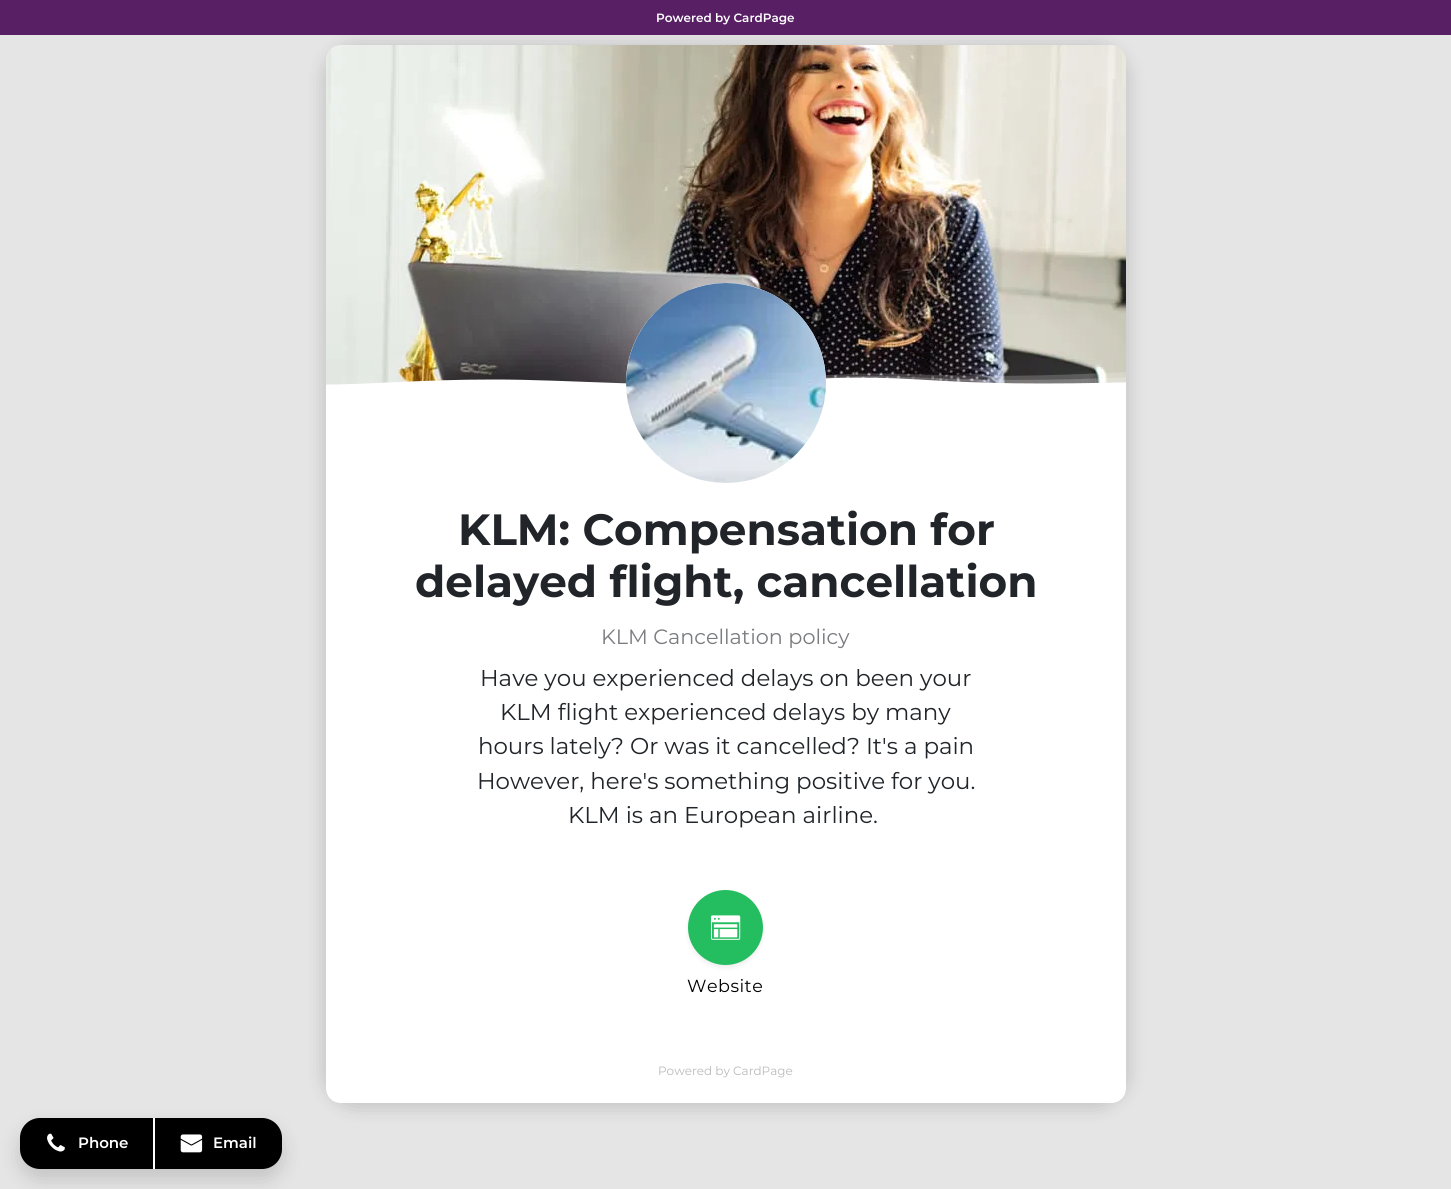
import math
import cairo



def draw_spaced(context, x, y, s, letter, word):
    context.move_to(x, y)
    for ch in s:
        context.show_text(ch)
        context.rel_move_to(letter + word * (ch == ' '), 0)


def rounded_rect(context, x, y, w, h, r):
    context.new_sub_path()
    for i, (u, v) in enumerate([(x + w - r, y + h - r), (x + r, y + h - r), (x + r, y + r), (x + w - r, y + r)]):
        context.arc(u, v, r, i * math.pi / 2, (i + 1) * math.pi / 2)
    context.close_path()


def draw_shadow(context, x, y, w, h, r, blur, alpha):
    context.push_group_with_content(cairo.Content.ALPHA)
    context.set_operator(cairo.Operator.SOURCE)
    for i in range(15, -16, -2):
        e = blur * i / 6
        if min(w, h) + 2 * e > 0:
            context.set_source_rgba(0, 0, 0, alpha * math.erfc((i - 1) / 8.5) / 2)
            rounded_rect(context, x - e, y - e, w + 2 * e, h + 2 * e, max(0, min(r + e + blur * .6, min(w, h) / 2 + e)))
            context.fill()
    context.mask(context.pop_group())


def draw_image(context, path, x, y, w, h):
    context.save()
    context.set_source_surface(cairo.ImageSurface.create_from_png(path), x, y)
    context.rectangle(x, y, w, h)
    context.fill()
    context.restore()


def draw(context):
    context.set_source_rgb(229 / 255, 229 / 255, 229 / 255)
    context.paint()
    context.set_source_rgb(0, 0, 0)
    draw_shadow(context, 324, 45, 804, 1062, 32, 9.5, 0.16)
    context.set_source_rgb(88 / 255, 31 / 255, 101 / 255)
    context.rectangle(0, 0, 1451, 35)
    context.fill()
    context.set_source_rgb(1, 1, 1)
    context.new_path()
    context.move_to(356, 45)
    context.line_to(1096, 45)
    context.curve_to(1112.5, 45, 1126, 58.5, 1126, 75)
    context.line_to(1126, 1088)
    context.curve_to(1126, 1096.5, 1119.5, 1103, 1111, 1103)
    context.line_to(341, 1103)
    context.curve_to(332.5, 1103, 326, 1096.5, 326, 1088)
    context.line_to(326, 75)
    context.curve_to(326, 58.5, 339.5, 45, 356, 45)
    context.close_path()
    context.fill()
    draw_image(context, "images/1.png", 326, 45, 800, 340)
    draw_image(context, "images/2.png", 326, 372, 800, 23)
    context.arc(726, 383, 100, 0, 2 * math.pi)
    context.fill()
    draw_image(context, "images/3.png", 626, 283, 200, 200)
    context.set_source_rgb(0, 0, 0)
    draw_shadow(context, 688, 893, 75, 75, 37.5, 2.5, 0.07)
    context.set_source_rgb(36 / 255, 189 / 255, 95 / 255)
    context.arc(725.5, 927.5, 37.5, 0, 2 * math.pi)
    context.fill()
    draw_image(context, "images/4.png", 710, 915, 31, 25)
    context.set_source_rgb(0, 0, 0)
    draw_shadow(context, 20, 1128, 262, 51, 20, 10.5, 0.15)
    context.set_source_rgb(0, 0, 0)
    rounded_rect(context, 20, 1118, 262, 51, 20)
    context.fill()
    context.set_source_rgb(1, 1, 1)
    context.rectangle(153, 1118, 2, 51)
    context.fill()
    draw_image(context, "images/5.png", 47, 1133, 18, 19)
    draw_image(context, "images/6.png", 180, 1134, 23, 19)
    context.select_font_face("Montserrat SemiBold")
    context.set_font_size(12)
    context.move_to(656, 22)
    context.show_text("Powered by CardPage")
    context.select_font_face("Montserrat", cairo.FontSlant.NORMAL, cairo.FontWeight.BOLD)
    context.set_font_size(43.75)
    context.set_source_rgb(33 / 255, 37 / 255, 41 / 255)
    context.move_to(458, 545)
    context.show_text("KLM: Compensation for")
    context.move_to(415, 597)
    context.show_text("delayed flight, cancellation")
    context.select_font_face("Montserrat")
    context.set_font_size(20.75)
    context.set_source_rgb(122 / 255, 124 / 255, 127 / 255)
    context.move_to(601, 644)
    context.show_text("KLM Cancellation policy")
    context.set_font_size(22.9)
    context.set_source_rgb(33 / 255, 37 / 255, 41 / 255)
    context.move_to(480, 686)
    context.show_text("Have you experienced delays on been your")
    context.move_to(500, 720)
    context.show_text("KLM flight experienced delays by many")
    context.move_to(478, 754)
    context.show_text("hours lately? Or was it cancelled? It's a pain")
    context.move_to(477, 789)
    context.show_text("However, here's something positive for you.")
    context.move_to(568, 823)
    context.show_text("KLM is an European airline.")
    context.set_font_size(17.5)
    context.set_source_rgb(0, 0, 0)
    draw_spaced(context, 687, 992, "Website", 0.5, 0)
    context.set_font_size(12)
    context.set_source_rgb(186 / 255, 186 / 255, 186 / 255)
    context.move_to(658, 1075)
    context.show_text("Powered by CardPage")
    context.select_font_face("Montserrat SemiBold")
    context.set_font_size(15)
    context.set_source_rgb(1, 1, 1)
    context.move_to(78, 1148)
    context.show_text("Phone")
    context.move_to(213, 1148)
    context.show_text("Email")


surface = cairo.ImageSurface(cairo.Format.RGB24, 1451, 1189)
context = cairo.Context(surface)
options = cairo.FontOptions()
options.set_hint_metrics(cairo.HintMetrics.OFF)
options.set_hint_style(cairo.HintStyle.NONE)
context.set_font_options(options)
context.set_miter_limit(4)
draw(context)
surface.write_to_png("out.png")
